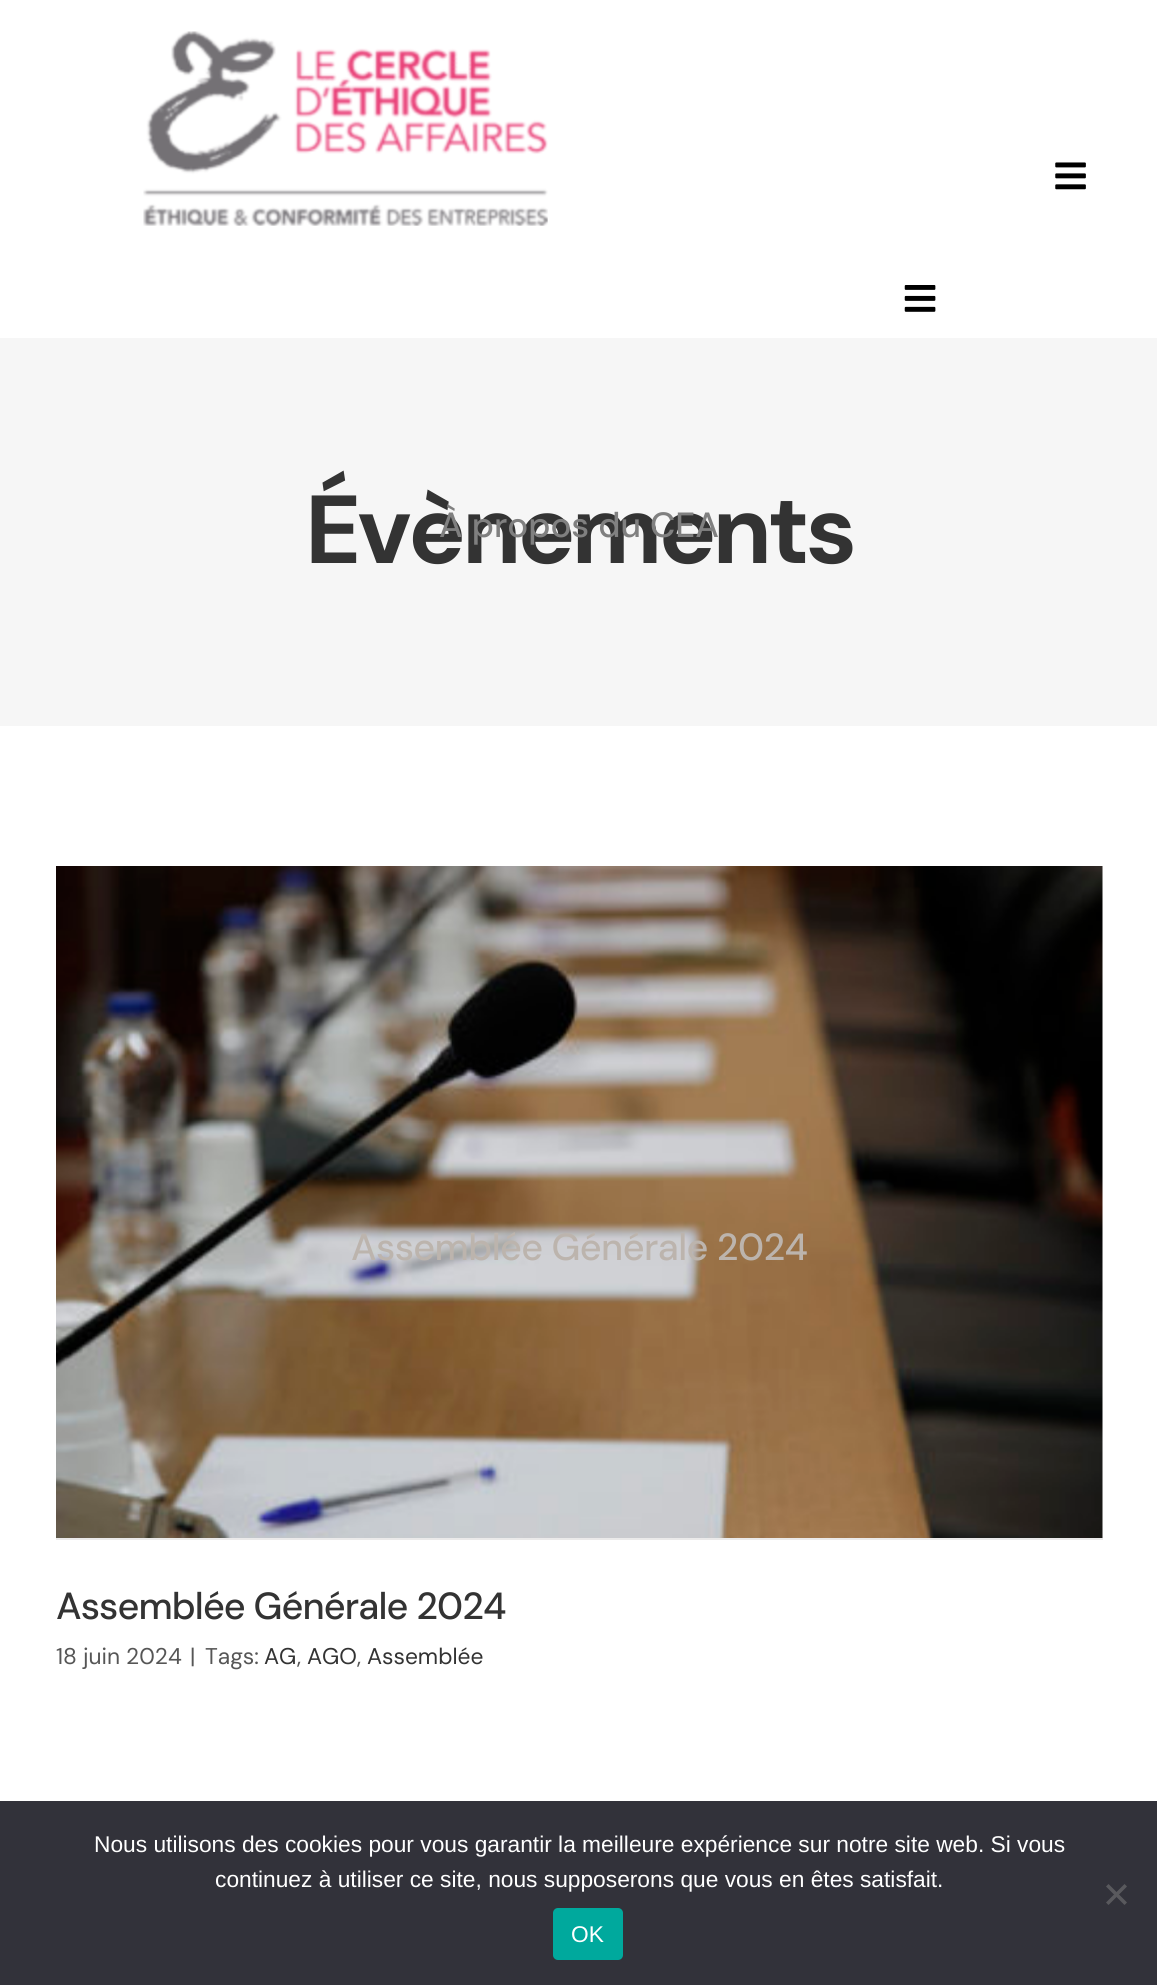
import math
import cairo



def draw_spaced(context, x, y, s, letter, word):
    context.move_to(x, y)
    for ch in s:
        context.show_text(ch)
        context.rel_move_to(letter + word * (ch == ' '), 0)


def rounded_rect(context, x, y, w, h, r):
    context.new_sub_path()
    for i, (u, v) in enumerate([(x + w - r, y + h - r), (x + r, y + h - r), (x + r, y + r), (x + w - r, y + r)]):
        context.arc(u, v, r, i * math.pi / 2, (i + 1) * math.pi / 2)
    context.close_path()


def draw_image(context, path, x, y, w, h):
    context.save()
    context.set_source_surface(cairo.ImageSurface.create_from_png(path), x, y)
    context.rectangle(x, y, w, h)
    context.fill()
    context.restore()


def draw(context):
    context.set_source_rgb(1, 1, 1)
    context.paint()
    context.set_source_rgb(246 / 255, 246 / 255, 246 / 255)
    context.rectangle(0, 338, 1157, 388)
    context.fill()
    draw_image(context, "images/1.png", 143, 31, 405, 195)
    draw_image(context, "images/2.png", 904, 285, 32, 27)
    draw_image(context, "images/3.png", 1055, 162, 31, 28)
    context.set_source_rgb(235 / 255, 234 / 255, 234 / 255)
    context.rectangle(56, 1538, 1047, 2)
    context.fill()
    draw_image(context, "images/4.png", 56, 866, 1047, 672)
    context.set_source_rgb(50 / 255, 50 / 255, 58 / 255)
    context.rectangle(0, 1801, 1157, 184)
    context.fill()
    context.set_source_rgb(89 / 255, 89 / 255, 93 / 255)
    context.new_path()
    context.move_to(1124.5, 1884)
    context.line_to(1127, 1886.5)
    context.line_to(1108.5, 1905)
    context.line_to(1106, 1902.5)
    context.close_path()
    context.fill()
    context.new_path()
    context.move_to(1106, 1886.5)
    context.line_to(1108.5, 1884)
    context.line_to(1127, 1902.5)
    context.line_to(1124.5, 1905)
    context.close_path()
    context.fill()
    context.set_source_rgb(0, 169 / 255, 157 / 255)
    rounded_rect(context, 553, 1908, 70, 52, 5)
    context.fill()
    context.select_font_face("DM Sans", cairo.FontSlant.NORMAL, cairo.FontWeight.BOLD)
    context.set_font_size(96.5)
    context.set_source_rgb(51 / 255, 51 / 255, 51 / 255)
    draw_spaced(context, 305, 563, "Évènements", -4, 0)
    context.select_font_face("DM Sans Medium")
    context.set_font_size(35)
    context.set_source_rgb(128 / 255, 128 / 255, 128 / 255)
    context.move_to(439, 537)
    context.show_text("À propos du CEA")
    context.set_font_size(37.75)
    context.set_source_rgb(188 / 255, 180 / 255, 173 / 255)
    draw_spaced(context, 351, 1260, "Assemblée Générale 2024", -0.6, 0)
    context.set_source_rgb(51 / 255, 51 / 255, 51 / 255)
    draw_spaced(context, 56, 1619, "Assemblée Générale 2024", -0.9, 0)
    context.select_font_face("DM Sans")
    context.set_font_size(22.75)
    context.set_source_rgb(86 / 255, 86 / 255, 86 / 255)
    context.move_to(56, 1664)
    context.show_text("18 juin 2024")
    context.move_to(190, 1664)
    context.show_text("|")
    context.move_to(205, 1664)
    context.show_text("Tags:")
    context.set_source_rgb(51 / 255, 51 / 255, 51 / 255)
    context.move_to(264, 1664)
    context.show_text("AG")
    context.set_source_rgb(86 / 255, 86 / 255, 86 / 255)
    context.move_to(297, 1664)
    context.show_text(",")
    context.set_source_rgb(51 / 255, 51 / 255, 51 / 255)
    context.move_to(307, 1664)
    context.show_text("AGO")
    context.set_source_rgb(86 / 255, 86 / 255, 86 / 255)
    context.move_to(357, 1664)
    context.show_text(",")
    context.set_source_rgb(51 / 255, 51 / 255, 51 / 255)
    context.move_to(367, 1664)
    context.show_text("Assemblée")
    context.select_font_face("Liberation Sans")
    context.set_source_rgb(1, 1, 1)
    context.move_to(94, 1852)
    context.show_text("Nous utilisons des cookies pour vous garantir la meilleure expérience sur notre site web. Si vous")
    context.move_to(215, 1887)
    context.show_text("continuez à utiliser ce site, nous supposerons que vous en êtes satisfait.")
    context.move_to(571, 1942)
    context.show_text("OK")


surface = cairo.ImageSurface(cairo.Format.RGB24, 1157, 1985)
context = cairo.Context(surface)
options = cairo.FontOptions()
options.set_hint_metrics(cairo.HintMetrics.OFF)
options.set_hint_style(cairo.HintStyle.NONE)
context.set_font_options(options)
context.set_miter_limit(4)
draw(context)
surface.write_to_png("out.png")
